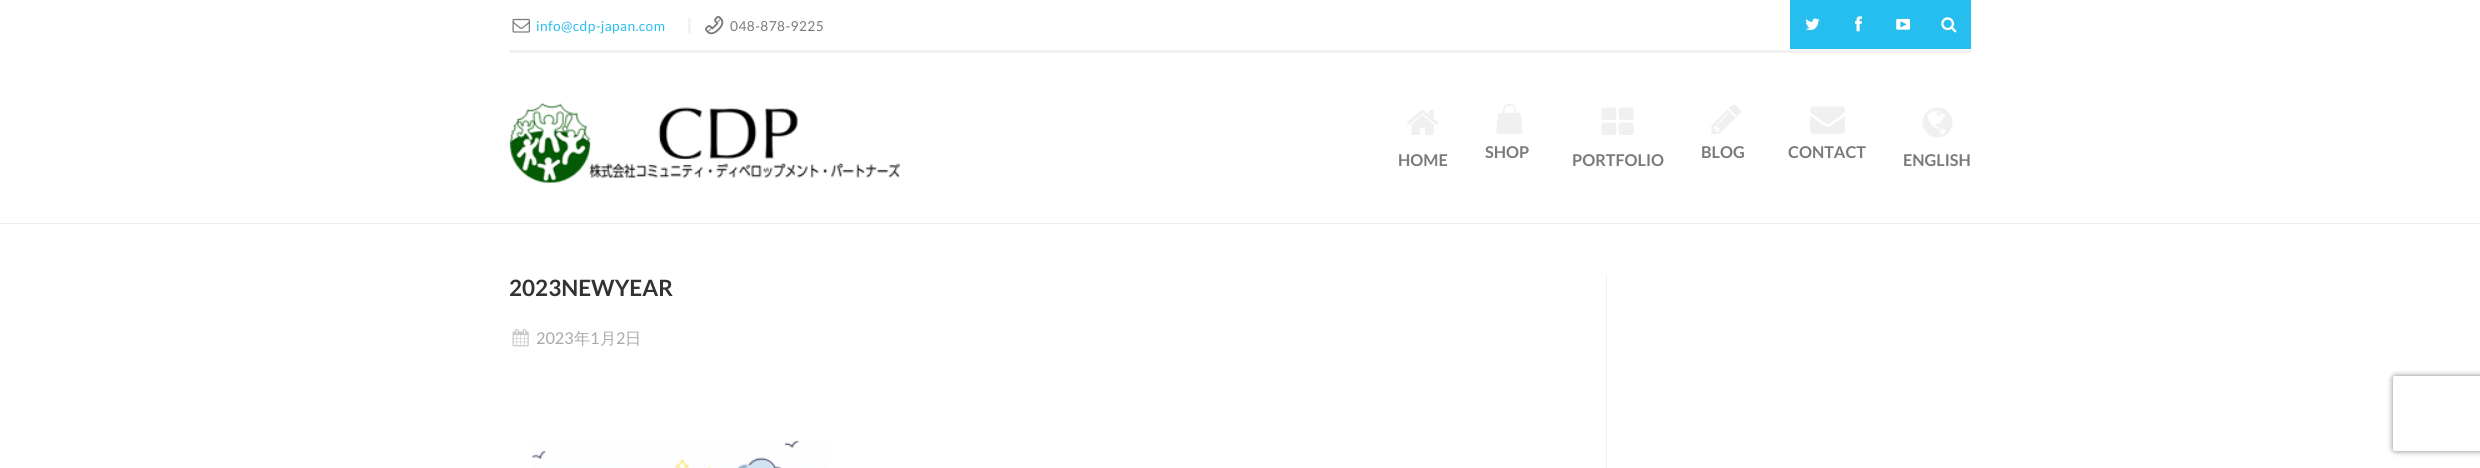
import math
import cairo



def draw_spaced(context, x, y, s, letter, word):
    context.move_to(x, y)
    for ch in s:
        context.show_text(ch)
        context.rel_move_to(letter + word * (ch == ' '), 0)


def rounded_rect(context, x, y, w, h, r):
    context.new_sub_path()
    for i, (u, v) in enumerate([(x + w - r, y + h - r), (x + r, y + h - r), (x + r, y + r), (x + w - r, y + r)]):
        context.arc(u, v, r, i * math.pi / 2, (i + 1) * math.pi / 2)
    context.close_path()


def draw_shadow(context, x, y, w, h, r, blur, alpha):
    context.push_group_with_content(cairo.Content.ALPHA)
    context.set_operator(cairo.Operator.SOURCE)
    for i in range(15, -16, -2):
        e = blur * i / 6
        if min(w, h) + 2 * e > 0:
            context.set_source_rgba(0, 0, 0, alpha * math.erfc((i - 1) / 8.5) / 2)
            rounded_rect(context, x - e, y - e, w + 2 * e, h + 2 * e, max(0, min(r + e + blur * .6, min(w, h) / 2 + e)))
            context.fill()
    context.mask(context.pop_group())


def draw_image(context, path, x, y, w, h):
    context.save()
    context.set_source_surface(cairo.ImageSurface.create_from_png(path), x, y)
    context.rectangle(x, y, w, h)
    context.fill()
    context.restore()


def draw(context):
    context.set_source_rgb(1, 1, 1)
    context.paint()
    context.set_source_rgb(241 / 255, 241 / 255, 241 / 255)
    context.rectangle(509, 50, 1462, 3)
    context.fill()
    draw_image(context, "images/1.png", 512, 18, 18, 15)
    context.set_source_rgb(242 / 255, 242 / 255, 242 / 255)
    context.rectangle(688, 18, 3, 16)
    context.fill()
    draw_image(context, "images/2.png", 705, 16, 19, 19)
    context.set_source_rgb(38 / 255, 189 / 255, 239 / 255)
    context.rectangle(1790, 0, 181, 49)
    context.fill()
    draw_image(context, "images/3.png", 1805, 18, 15, 13)
    draw_image(context, "images/4.png", 1855, 16, 7, 16)
    draw_image(context, "images/5.png", 1896, 18, 15, 12)
    draw_image(context, "images/6.png", 1941, 17, 16, 16)
    draw_image(context, "images/7.png", 508, 102, 392, 82)
    draw_image(context, "images/8.png", 1496, 104, 27, 30)
    draw_image(context, "images/9.png", 1711, 104, 30, 30)
    draw_image(context, "images/10.png", 1810, 106, 35, 28)
    draw_image(context, "images/11.png", 1407, 110, 31, 25)
    draw_image(context, "images/12.png", 1601, 107, 33, 28)
    draw_image(context, "images/13.png", 1922, 107, 31, 31)
    context.set_source_rgb(238 / 255, 238 / 255, 238 / 255)
    context.rectangle(0, 223, 2480, 1)
    context.fill()
    context.set_source_rgb(241 / 255, 241 / 255, 241 / 255)
    context.rectangle(1606, 274, 1, 194)
    context.fill()
    draw_image(context, "images/14.png", 512, 329, 17, 18)
    draw_image(context, "images/15.png", 531, 440, 298, 28)
    context.save()
    context.set_fill_rule(cairo.FillRule.EVEN_ODD)
    context.new_path()
    context.move_to(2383, 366)
    context.line_to(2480, 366)
    context.line_to(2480, 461)
    context.line_to(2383, 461)
    context.close_path()
    context.move_to(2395.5, 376)
    context.line_to(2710.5, 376)
    context.curve_to(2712, 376, 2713, 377, 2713, 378.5)
    context.line_to(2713, 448.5)
    context.curve_to(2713, 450, 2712, 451, 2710.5, 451)
    context.line_to(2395.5, 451)
    context.curve_to(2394, 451, 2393, 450, 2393, 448.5)
    context.line_to(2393, 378.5)
    context.curve_to(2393, 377, 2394, 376, 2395.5, 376)
    context.close_path()
    context.clip()
    context.set_source_rgb(128 / 255, 128 / 255, 128 / 255)
    draw_shadow(context, 2393, 376, 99, 75, 2.5, 3, 1)
    context.restore()
    context.select_font_face("Lato")
    context.set_font_size(13.75)
    context.set_source_rgb(38 / 255, 189 / 255, 239 / 255)
    draw_spaced(context, 536, 31, "info@cdp-japan.com", 0.4, 0)
    context.set_source_rgb(122 / 255, 122 / 255, 122 / 255)
    draw_spaced(context, 730, 31, "048-878-9225", 0.4, 0)
    context.select_font_face("Lato", cairo.FontSlant.NORMAL, cairo.FontWeight.BOLD)
    context.set_font_size(16.25)
    context.move_to(1485, 158)
    context.show_text("SHOP")
    context.move_to(1701, 158)
    context.show_text("BLOG")
    context.move_to(1788, 158)
    context.show_text("CONTACT")
    context.move_to(1398, 166)
    context.show_text("HOME")
    context.move_to(1572, 166)
    context.show_text("PORTFOLIO")
    context.move_to(1903, 166)
    context.show_text("ENGLISH")
    context.set_font_size(22.5)
    context.set_source_rgb(51 / 255, 51 / 255, 51 / 255)
    context.move_to(509, 296)
    context.show_text("2023NEWYEAR")
    context.select_font_face("Lato")
    context.set_font_size(16.25)
    context.set_source_rgb(170 / 255, 170 / 255, 170 / 255)
    context.move_to(536, 344)
    context.show_text("2023")
    context.select_font_face("WenQuanYi Zen Hei Medium")
    context.move_to(574, 344)
    context.show_text("年")
    context.select_font_face("Lato")
    context.move_to(590, 344)
    context.show_text("1")
    context.select_font_face("WenQuanYi Zen Hei Medium")
    context.move_to(600, 344)
    context.show_text("月")
    context.select_font_face("Lato")
    context.move_to(616, 344)
    context.show_text("2")
    context.select_font_face("WenQuanYi Zen Hei Medium")
    context.move_to(625, 344)
    context.show_text("日")


surface = cairo.ImageSurface(cairo.Format.RGB24, 2480, 468)
context = cairo.Context(surface)
options = cairo.FontOptions()
options.set_hint_metrics(cairo.HintMetrics.OFF)
options.set_hint_style(cairo.HintStyle.NONE)
context.set_font_options(options)
context.set_miter_limit(4)
draw(context)
surface.write_to_png("out.png")
